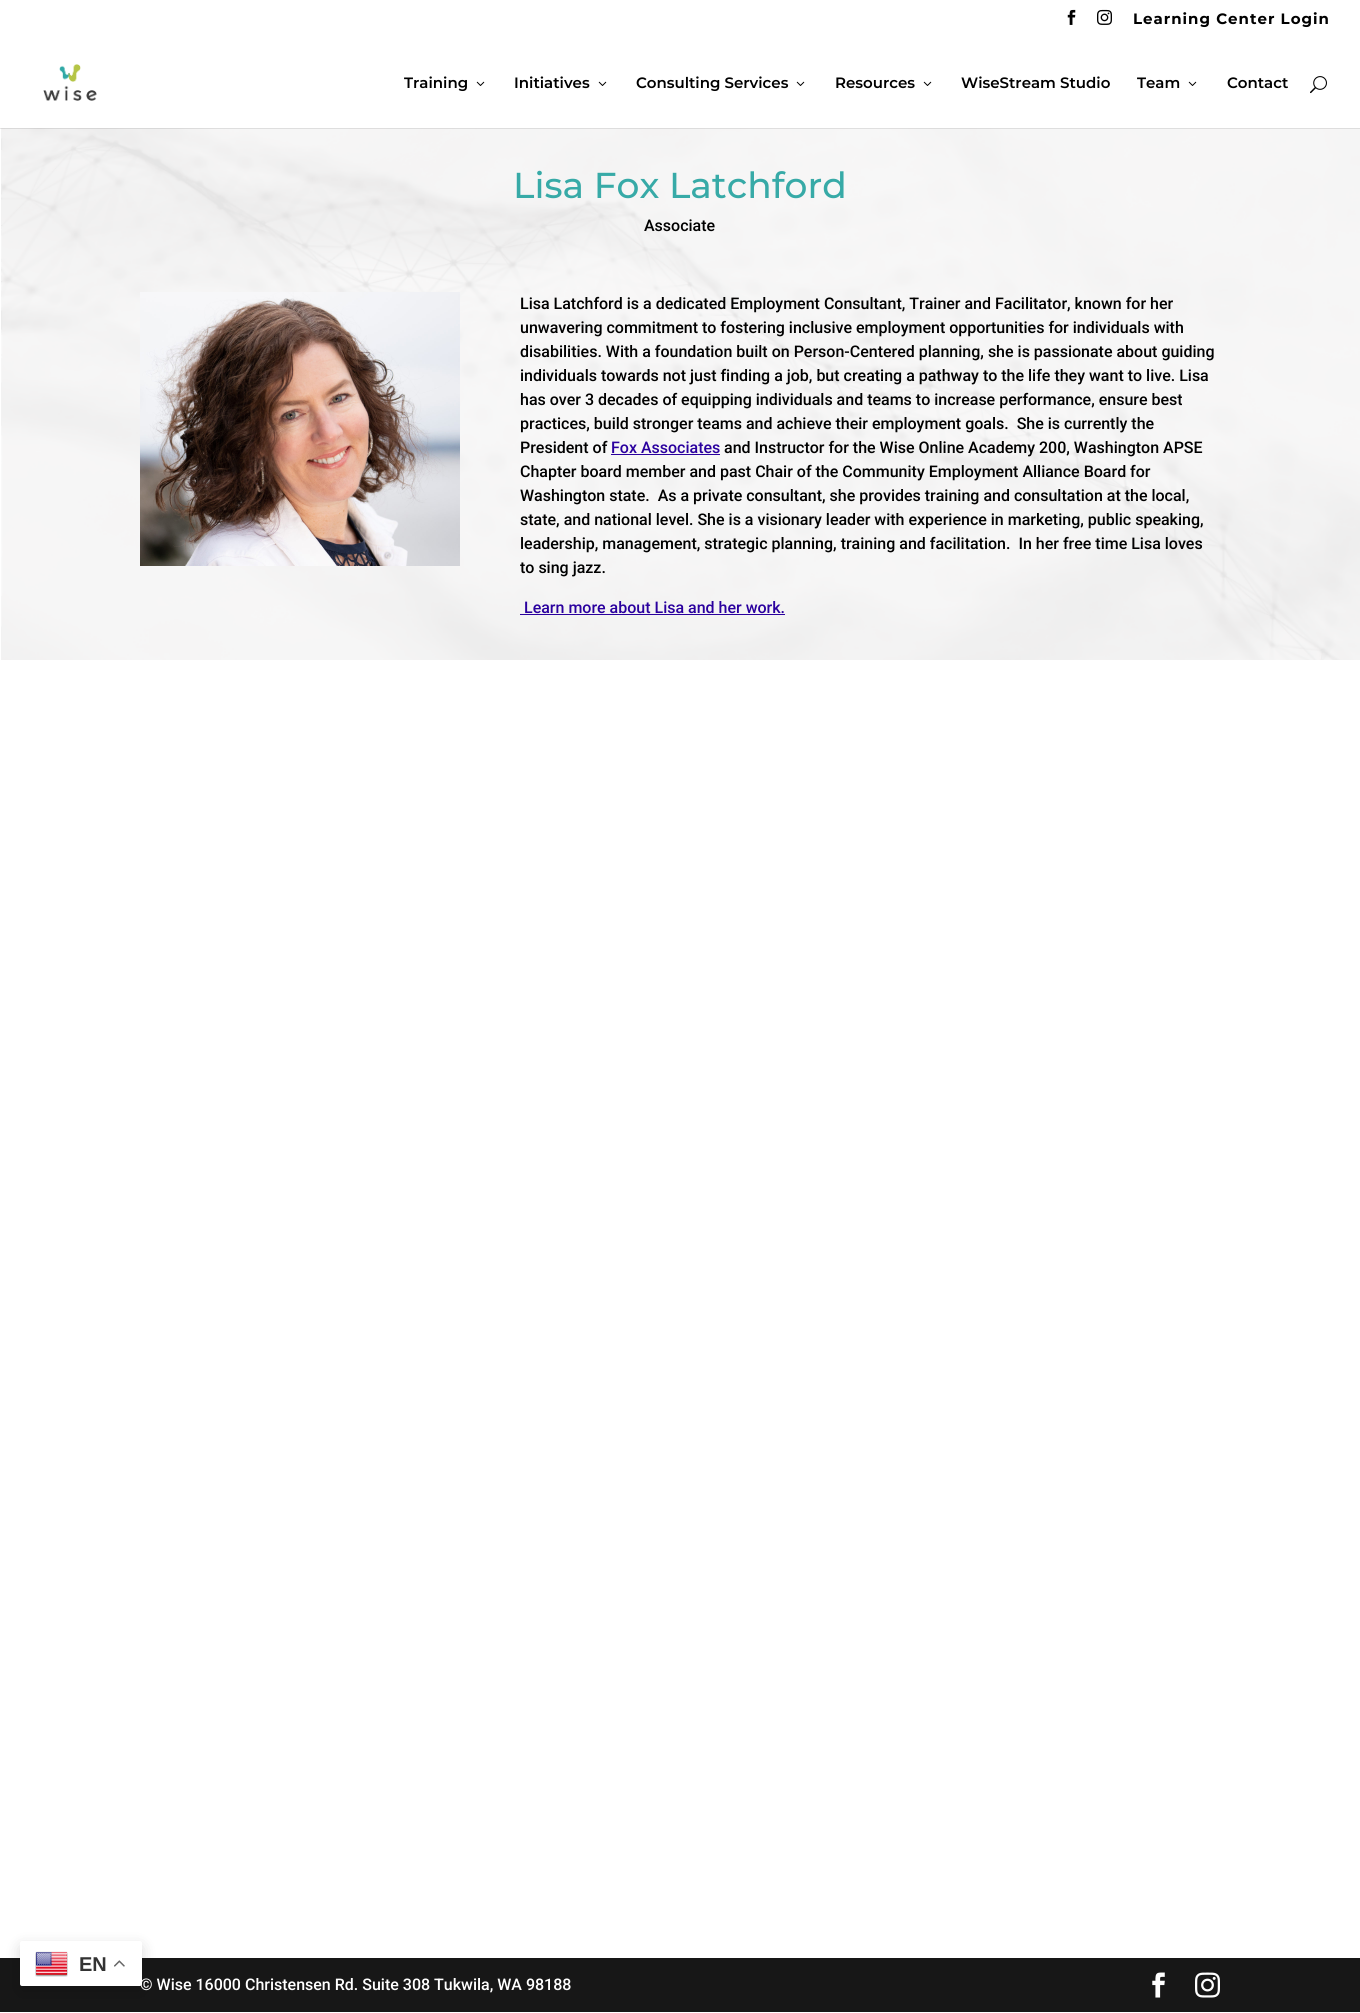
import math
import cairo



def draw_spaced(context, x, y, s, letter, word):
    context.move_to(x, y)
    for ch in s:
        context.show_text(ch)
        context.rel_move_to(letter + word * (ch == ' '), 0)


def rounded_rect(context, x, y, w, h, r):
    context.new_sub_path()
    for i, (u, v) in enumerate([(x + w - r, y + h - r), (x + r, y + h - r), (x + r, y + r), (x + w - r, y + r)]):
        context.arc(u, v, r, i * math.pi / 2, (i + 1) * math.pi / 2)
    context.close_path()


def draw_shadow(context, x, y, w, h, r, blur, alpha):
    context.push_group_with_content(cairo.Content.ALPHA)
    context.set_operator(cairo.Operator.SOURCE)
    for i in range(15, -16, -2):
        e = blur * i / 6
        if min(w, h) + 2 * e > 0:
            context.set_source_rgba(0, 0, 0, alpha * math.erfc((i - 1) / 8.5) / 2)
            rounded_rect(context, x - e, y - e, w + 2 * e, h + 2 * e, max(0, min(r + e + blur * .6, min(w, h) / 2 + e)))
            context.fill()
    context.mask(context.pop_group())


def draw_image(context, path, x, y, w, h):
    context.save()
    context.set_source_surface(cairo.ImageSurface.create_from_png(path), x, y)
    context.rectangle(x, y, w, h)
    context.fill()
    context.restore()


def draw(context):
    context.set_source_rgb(1, 1, 1)
    context.paint()
    context.set_source_rgb(23 / 255, 23 / 255, 23 / 255)
    context.rectangle(0, 1958, 1360, 54)
    context.fill()
    context.set_source_rgb(0, 0, 0)
    draw_shadow(context, 20, 1946, 122, 45, 2, 7.5, 0.15)
    context.set_source_rgb(1, 1, 1)
    rounded_rect(context, 20, 1941, 122, 45, 2)
    context.fill()
    draw_image(context, "images/1.png", 35, 1951, 33, 26)
    draw_image(context, "images/2.png", 114, 1960, 11, 7)
    draw_image(context, "images/3.png", 1067, 9, 9, 16)
    draw_image(context, "images/4.png", 1097, 9, 15, 16)
    draw_image(context, "images/8.png", 1, 128, 1359, 532)
    context.set_source_rgba(0, 0, 0, 0.1)
    context.rectangle(0, 128, 1360, 1)
    context.fill()
    draw_image(context, "images/5.png", 43, 64, 54, 37)
    draw_image(context, "images/6.png", 476, 81, 9, 5)
    draw_image(context, "images/6.png", 598, 81, 9, 5)
    draw_image(context, "images/6.png", 796, 81, 9, 5)
    draw_image(context, "images/6.png", 923, 81, 9, 5)
    draw_image(context, "images/6.png", 1188, 81, 9, 5)
    draw_image(context, "images/7.png", 1310, 76, 17, 18)
    draw_image(context, "images/9.png", 140, 292, 320, 274)
    context.set_source_rgb(42 / 255, 0, 158 / 255)
    context.rectangle(611, 454, 109, 1)
    context.fill()
    context.rectangle(520, 614, 265, 1)
    context.fill()
    draw_image(context, "images/10.png", 1152, 1972, 13, 26)
    draw_image(context, "images/11.png", 1195, 1972, 25, 26)
    context.select_font_face("Liberation Sans", cairo.FontSlant.NORMAL, cairo.FontWeight.BOLD)
    context.set_font_size(20)
    context.set_source_rgb(51 / 255, 51 / 255, 51 / 255)
    context.move_to(79, 1971)
    context.show_text("EN")
    context.select_font_face("Montserrat", cairo.FontSlant.NORMAL, cairo.FontWeight.BOLD)
    context.set_font_size(15)
    context.set_source_rgb(0, 0, 0)
    draw_spaced(context, 1133, 24, "Learning Center Login", 1, 0)
    context.select_font_face("Montserrat SemiBold")
    context.move_to(404, 88)
    context.show_text("Training")
    context.move_to(514, 88)
    context.show_text("Initiatives")
    context.move_to(636, 88)
    context.show_text("Consulting Services")
    context.move_to(835, 88)
    context.show_text("Resources")
    context.move_to(961, 88)
    context.show_text("WiseStream Studio")
    context.move_to(1137, 88)
    context.show_text("Team")
    context.move_to(1227, 88)
    context.show_text("Contact")
    context.select_font_face("Montserrat Medium")
    context.set_font_size(36)
    context.set_source_rgb(55 / 255, 170 / 255, 167 / 255)
    context.move_to(513, 198)
    context.show_text("Lisa Fox Latchford")
    context.select_font_face("Roboto Medium")
    context.set_font_size(16)
    context.set_source_rgb(0, 0, 0)
    context.move_to(644, 231)
    context.show_text("Associate")
    context.move_to(520, 309)
    context.show_text("Lisa Latchford is a dedicated Employment Consultant, Trainer and Facilitator, known for her")
    context.move_to(520, 333)
    context.show_text("unwavering commitment to fostering inclusive employment opportunities for individuals with")
    context.move_to(520, 357)
    context.show_text("disabilities. With a foundation built on Person-Centered planning, she is passionate about guiding")
    context.move_to(520, 381)
    context.show_text("individuals towards not just finding a job, but creating a pathway to the life they want to live. Lisa")
    context.move_to(520, 405)
    context.show_text("has over 3 decades of equipping individuals and teams to increase performance, ensure best")
    context.move_to(520, 429)
    context.show_text("practices, build stronger teams and achieve their employment goals.  She is currently the")
    context.move_to(520, 453)
    context.show_text("President of")
    context.set_source_rgb(42 / 255, 0, 158 / 255)
    context.move_to(611, 453)
    context.show_text("Fox Associates")
    context.set_source_rgb(0, 0, 0)
    context.move_to(724, 453)
    context.show_text("and Instructor for the Wise Online Academy 200, Washington APSE")
    context.move_to(520, 477)
    context.show_text("Chapter board member and past Chair of the Community Employment Alliance Board for")
    context.move_to(520, 501)
    context.show_text("Washington state.  As a private consultant, she provides training and consultation at the local,")
    context.move_to(520, 525)
    context.show_text("state, and national level. She is a visionary leader with experience in marketing, public speaking,")
    context.move_to(520, 549)
    context.show_text("leadership, management, strategic planning, training and facilitation.  In her free time Lisa loves")
    context.move_to(520, 573)
    context.show_text("to sing jazz.")
    context.set_source_rgb(42 / 255, 0, 158 / 255)
    context.move_to(524, 613)
    context.show_text("Learn more about Lisa and her work.")
    context.set_source_rgb(1, 1, 1)
    context.move_to(140, 1990)
    context.show_text("© Wise 16000 Christensen Rd. Suite 308 Tukwila, WA 98188")


surface = cairo.ImageSurface(cairo.Format.RGB24, 1360, 2013)
context = cairo.Context(surface)
options = cairo.FontOptions()
options.set_hint_metrics(cairo.HintMetrics.OFF)
options.set_hint_style(cairo.HintStyle.NONE)
context.set_font_options(options)
context.set_miter_limit(4)
draw(context)
surface.write_to_png("out.png")
